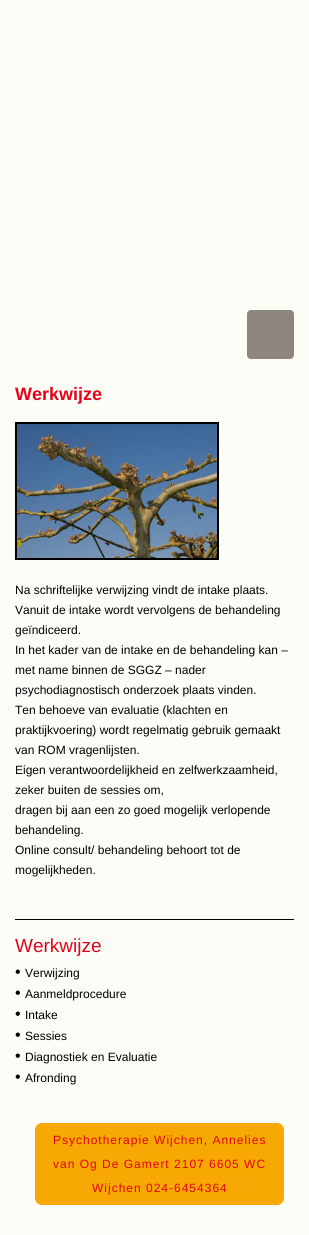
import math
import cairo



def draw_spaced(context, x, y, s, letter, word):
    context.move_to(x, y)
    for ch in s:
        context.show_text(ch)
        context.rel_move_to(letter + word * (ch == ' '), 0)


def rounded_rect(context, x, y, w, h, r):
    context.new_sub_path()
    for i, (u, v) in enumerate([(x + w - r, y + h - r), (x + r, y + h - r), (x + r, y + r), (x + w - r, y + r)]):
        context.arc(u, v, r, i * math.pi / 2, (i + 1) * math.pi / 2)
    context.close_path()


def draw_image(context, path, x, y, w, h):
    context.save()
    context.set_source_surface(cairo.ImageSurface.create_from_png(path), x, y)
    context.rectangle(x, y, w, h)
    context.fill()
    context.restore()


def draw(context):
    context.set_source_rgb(252 / 255, 253 / 255, 247 / 255)
    context.paint()
    context.set_source_rgb(140 / 255, 134 / 255, 126 / 255)
    rounded_rect(context, 247, 310, 47, 49, 4)
    context.fill()
    context.rectangle(16, 423, 202, 136)
    context.set_source_rgb(0, 0, 0)
    context.stroke()
    draw_image(context, "images/1.png", 17, 424, 200, 134)
    context.rectangle(15, 919, 279, 1)
    context.fill()
    context.set_source_rgb(248 / 255, 168 / 255, 2 / 255)
    rounded_rect(context, 35, 1123, 249, 82, 7)
    context.fill()
    context.select_font_face("Liberation Sans", cairo.FontSlant.NORMAL, cairo.FontWeight.BOLD)
    context.set_font_size(18)
    context.set_source_rgb(226 / 255, 4 / 255, 26 / 255)
    context.move_to(15, 400)
    context.show_text("Werkwijze")
    context.select_font_face("Liberation Sans")
    context.set_font_size(12)
    context.set_source_rgb(0, 0, 0)
    context.move_to(15, 594)
    context.show_text("Na schriftelijke verwijzing vindt de intake plaats.")
    context.move_to(15, 614)
    context.show_text("Vanuit de intake wordt vervolgens de behandeling")
    context.move_to(15, 634)
    context.show_text("geïndiceerd.")
    context.move_to(15, 654)
    context.show_text("In het kader van de intake en de behandeling kan –")
    context.move_to(15, 674)
    context.show_text("met name binnen de SGGZ – nader")
    context.move_to(15, 694)
    context.show_text("psychodiagnostisch onderzoek plaats vinden.")
    context.move_to(15, 714)
    context.show_text("Ten behoeve van evaluatie (klachten en")
    context.move_to(15, 734)
    context.show_text("praktijkvoering) wordt regelmatig gebruik gemaakt")
    context.move_to(15, 754)
    context.show_text("van ROM vragenlijsten.")
    context.move_to(15, 774)
    context.show_text("Eigen verantwoordelijkheid en zelfwerkzaamheid,")
    context.move_to(15, 794)
    context.show_text("zeker buiten de sessies om,")
    context.move_to(15, 814)
    context.show_text("dragen bij aan een zo goed mogelijk verlopende")
    context.move_to(15, 834)
    context.show_text("behandeling.")
    context.move_to(15, 854)
    context.show_text("Online consult/ behandeling behoort tot de")
    context.move_to(15, 874)
    context.show_text("mogelijkheden.")
    context.set_font_size(19)
    context.set_source_rgb(226 / 255, 4 / 255, 26 / 255)
    context.move_to(15, 952)
    context.show_text("Werkwijze")
    context.set_font_size(16)
    context.set_source_rgb(0, 0, 0)
    context.move_to(15, 977)
    context.show_text("•")
    context.set_font_size(12)
    context.move_to(25, 977)
    context.show_text("Verwijzing")
    context.set_font_size(16)
    context.move_to(15, 998)
    context.show_text("•")
    context.set_font_size(12)
    context.move_to(25, 998)
    context.show_text("Aanmeldprocedure")
    context.set_font_size(16)
    context.move_to(15, 1019)
    context.show_text("•")
    context.set_font_size(12)
    context.move_to(25, 1019)
    context.show_text("Intake")
    context.set_font_size(16)
    context.move_to(15, 1040)
    context.show_text("•")
    context.set_font_size(12)
    context.move_to(25, 1040)
    context.show_text("Sessies")
    context.set_font_size(16)
    context.move_to(15, 1061)
    context.show_text("•")
    context.set_font_size(12)
    context.move_to(25, 1061)
    context.show_text("Diagnostiek en Evaluatie")
    context.set_font_size(16)
    context.move_to(15, 1082)
    context.show_text("•")
    context.set_font_size(12)
    context.move_to(25, 1082)
    context.show_text("Afronding")
    context.set_source_rgb(226 / 255, 4 / 255, 26 / 255)
    draw_spaced(context, 53, 1144, "Psychotherapie Wijchen, Annelies", 1, 0)
    draw_spaced(context, 53, 1168, "van Og De Gamert 2107 6605 WC", 1, 0)
    draw_spaced(context, 92, 1192, "Wijchen 024-6454364", 1, 0)


surface = cairo.ImageSurface(cairo.Format.RGB24, 309, 1235)
context = cairo.Context(surface)
options = cairo.FontOptions()
options.set_hint_metrics(cairo.HintMetrics.OFF)
options.set_hint_style(cairo.HintStyle.NONE)
context.set_font_options(options)
context.set_miter_limit(4)
draw(context)
surface.write_to_png("out.png")
